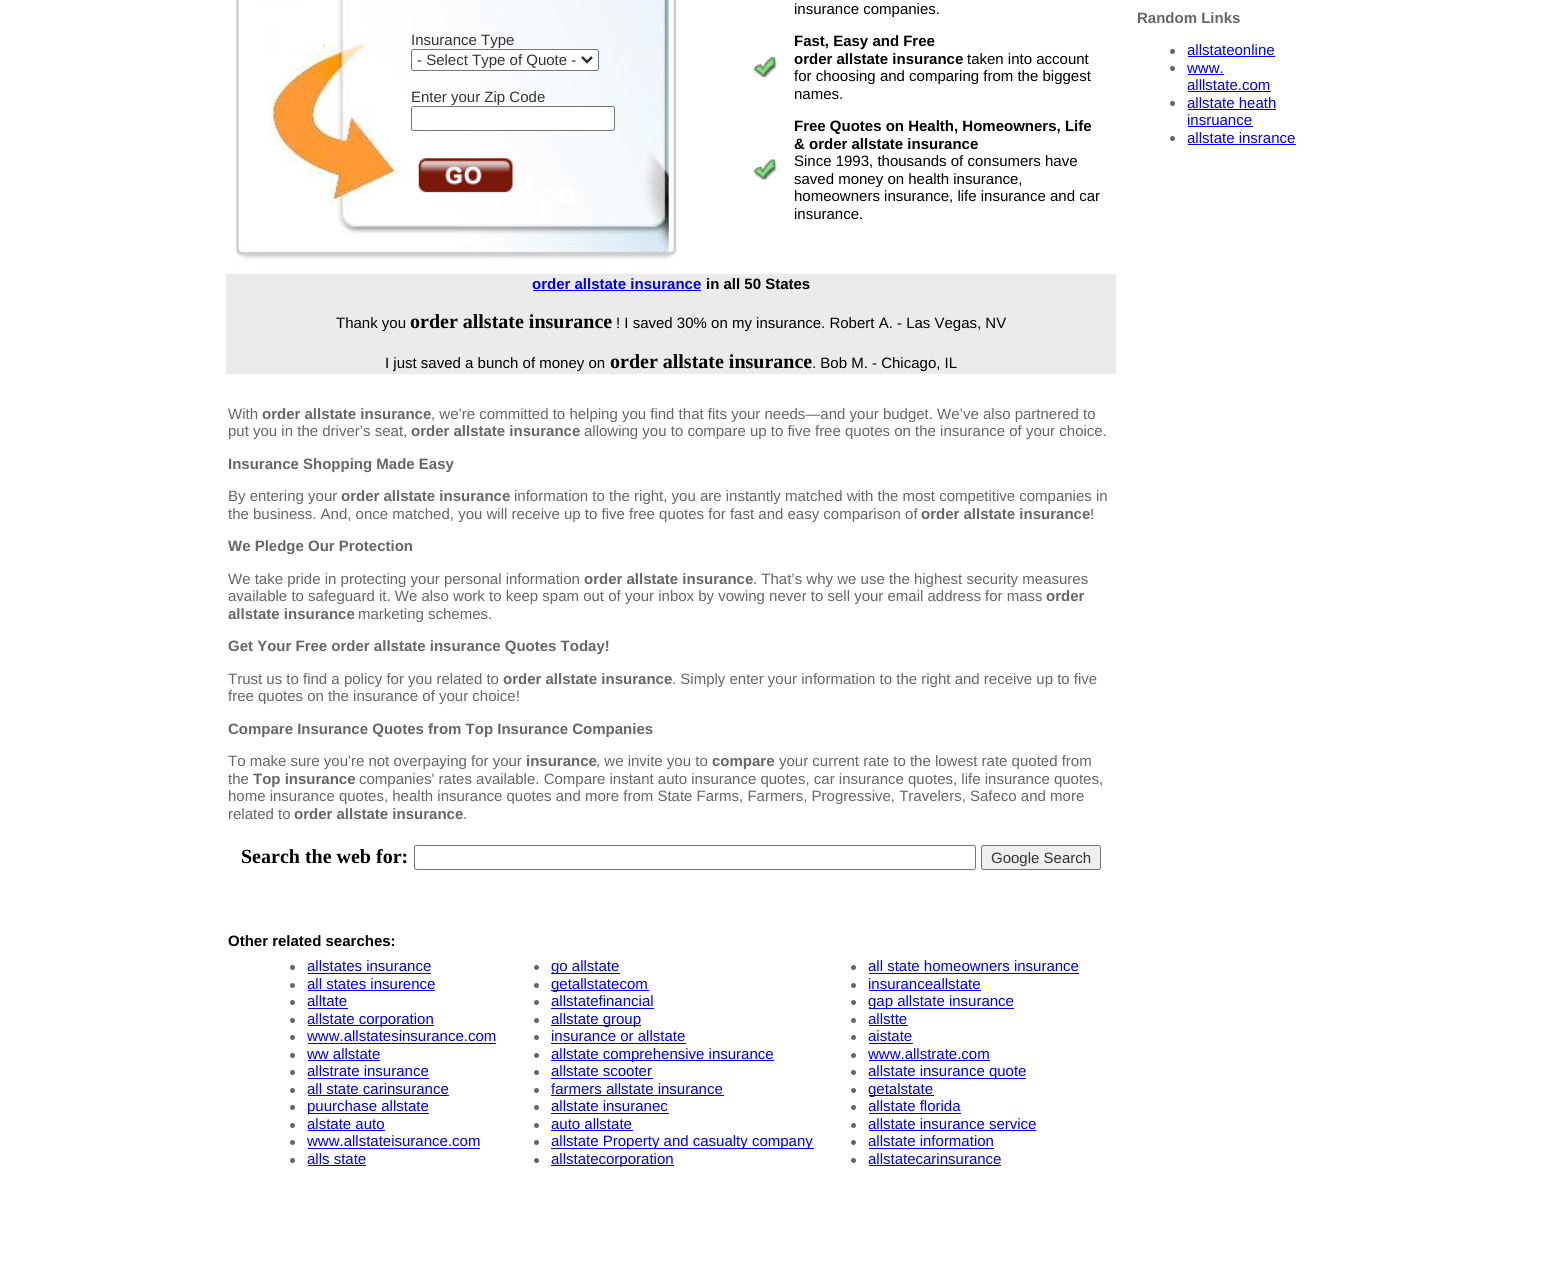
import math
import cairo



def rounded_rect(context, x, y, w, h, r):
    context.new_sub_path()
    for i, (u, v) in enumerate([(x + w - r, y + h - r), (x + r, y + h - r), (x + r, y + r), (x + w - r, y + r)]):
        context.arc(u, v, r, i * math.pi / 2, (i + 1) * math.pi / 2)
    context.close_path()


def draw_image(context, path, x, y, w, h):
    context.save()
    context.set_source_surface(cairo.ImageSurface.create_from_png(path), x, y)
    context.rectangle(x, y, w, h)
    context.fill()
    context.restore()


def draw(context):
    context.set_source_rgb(1, 1, 1)
    context.paint()
    draw_image(context, "images/1.png", 235, 0, 442, 266)
    context.set_source_rgb(1, 1, 1)
    rounded_rect(context, 411.5, 49.5, 187, 21, 2)
    context.fill_preserve()
    context.set_source_rgb(118 / 255, 118 / 255, 118 / 255)
    context.set_line_width(1)
    context.stroke()
    context.new_path()
    context.move_to(582, 57)
    context.line_to(587, 62)
    context.line_to(592, 57)
    context.set_source_rgb(51 / 255, 51 / 255, 51 / 255)
    context.set_line_width(2.5)
    context.stroke()
    context.set_source_rgb(1, 1, 1)
    rounded_rect(context, 411.5, 106.5, 203, 24, 2)
    context.fill_preserve()
    context.set_source_rgb(118 / 255, 118 / 255, 118 / 255)
    context.set_line_width(1)
    context.stroke()
    draw_image(context, "images/2.png", 418, 158, 95, 35)
    draw_image(context, "images/3.png", 753, 56, 24, 22)
    draw_image(context, "images/4.png", 753, 159, 24, 21)
    context.set_source_rgb(102 / 255, 102 / 255, 102 / 255)
    context.arc(1172.5, 51.5, 2.5, 0, 2 * math.pi)
    context.fill()
    context.set_source_rgb(0, 0, 238 / 255)
    context.rectangle(1188, 56, 87, 1)
    context.fill()
    context.set_source_rgb(102 / 255, 102 / 255, 102 / 255)
    context.arc(1172.5, 68.5, 2.5, 0, 2 * math.pi)
    context.fill()
    context.set_source_rgb(0, 0, 238 / 255)
    context.rectangle(1188, 74, 36, 1)
    context.fill()
    context.rectangle(1188, 91, 83, 1)
    context.fill()
    context.set_source_rgb(102 / 255, 102 / 255, 102 / 255)
    context.arc(1172.5, 103.5, 2.5, 0, 2 * math.pi)
    context.fill()
    context.set_source_rgb(0, 0, 238 / 255)
    context.rectangle(1188, 109, 88, 1)
    context.fill()
    context.rectangle(1188, 126, 65, 1)
    context.fill()
    context.set_source_rgb(102 / 255, 102 / 255, 102 / 255)
    context.arc(1172.5, 138.5, 2.5, 0, 2 * math.pi)
    context.fill()
    context.set_source_rgb(0, 0, 238 / 255)
    context.rectangle(1188, 144, 108, 1)
    context.fill()
    context.set_source_rgb(235 / 255, 235 / 255, 235 / 255)
    context.rectangle(226, 274, 890, 100)
    context.fill()
    context.set_source_rgb(0, 0, 238 / 255)
    context.rectangle(533, 290, 168, 1)
    context.fill()
    rounded_rect(context, 414.5, 845.5, 561, 24, 2)
    context.set_source_rgb(118 / 255, 118 / 255, 118 / 255)
    context.stroke()
    context.set_source_rgb(239 / 255, 239 / 255, 239 / 255)
    rounded_rect(context, 981.5, 845.5, 119, 24, 2)
    context.fill_preserve()
    context.set_source_rgb(118 / 255, 118 / 255, 118 / 255)
    context.stroke()
    context.set_source_rgb(102 / 255, 102 / 255, 102 / 255)
    context.arc(292.5, 967.5, 2.5, 0, 2 * math.pi)
    context.fill()
    context.set_source_rgb(0, 0, 238 / 255)
    context.rectangle(308, 973, 123, 1)
    context.fill()
    context.set_source_rgb(102 / 255, 102 / 255, 102 / 255)
    context.arc(292.5, 985.5, 2.5, 0, 2 * math.pi)
    context.fill()
    context.set_source_rgb(0, 0, 238 / 255)
    context.rectangle(308, 990, 127, 1)
    context.fill()
    context.set_source_rgb(102 / 255, 102 / 255, 102 / 255)
    context.arc(292.5, 1002.5, 2.5, 0, 2 * math.pi)
    context.fill()
    context.set_source_rgb(0, 0, 238 / 255)
    context.rectangle(308, 1008, 40, 1)
    context.fill()
    context.set_source_rgb(102 / 255, 102 / 255, 102 / 255)
    context.arc(292.5, 1020.5, 2.5, 0, 2 * math.pi)
    context.fill()
    context.set_source_rgb(0, 0, 238 / 255)
    context.rectangle(308, 1025, 126, 1)
    context.fill()
    context.set_source_rgb(102 / 255, 102 / 255, 102 / 255)
    context.arc(292.5, 1037.5, 2.5, 0, 2 * math.pi)
    context.fill()
    context.set_source_rgb(0, 0, 238 / 255)
    context.rectangle(308, 1043, 188, 1)
    context.fill()
    context.set_source_rgb(102 / 255, 102 / 255, 102 / 255)
    context.arc(292.5, 1055.5, 2.5, 0, 2 * math.pi)
    context.fill()
    context.set_source_rgb(0, 0, 238 / 255)
    context.rectangle(308, 1060, 72, 1)
    context.fill()
    context.set_source_rgb(102 / 255, 102 / 255, 102 / 255)
    context.arc(292.5, 1072.5, 2.5, 0, 2 * math.pi)
    context.fill()
    context.set_source_rgb(0, 0, 238 / 255)
    context.rectangle(308, 1078, 121, 1)
    context.fill()
    context.set_source_rgb(102 / 255, 102 / 255, 102 / 255)
    context.arc(292.5, 1090.5, 2.5, 0, 2 * math.pi)
    context.fill()
    context.set_source_rgb(0, 0, 238 / 255)
    context.rectangle(308, 1095, 141, 1)
    context.fill()
    context.set_source_rgb(102 / 255, 102 / 255, 102 / 255)
    context.arc(292.5, 1107.5, 2.5, 0, 2 * math.pi)
    context.fill()
    context.set_source_rgb(0, 0, 238 / 255)
    context.rectangle(308, 1113, 121, 1)
    context.fill()
    context.set_source_rgb(102 / 255, 102 / 255, 102 / 255)
    context.arc(292.5, 1125.5, 2.5, 0, 2 * math.pi)
    context.fill()
    context.set_source_rgb(0, 0, 238 / 255)
    context.rectangle(308, 1130, 77, 1)
    context.fill()
    context.set_source_rgb(102 / 255, 102 / 255, 102 / 255)
    context.arc(292.5, 1142.5, 2.5, 0, 2 * math.pi)
    context.fill()
    context.set_source_rgb(0, 0, 238 / 255)
    context.rectangle(308, 1148, 172, 1)
    context.fill()
    context.set_source_rgb(102 / 255, 102 / 255, 102 / 255)
    context.arc(292.5, 1160.5, 2.5, 0, 2 * math.pi)
    context.fill()
    context.set_source_rgb(0, 0, 238 / 255)
    context.rectangle(308, 1165, 58, 1)
    context.fill()
    context.set_source_rgb(102 / 255, 102 / 255, 102 / 255)
    context.arc(536.5, 967.5, 2.5, 0, 2 * math.pi)
    context.fill()
    context.set_source_rgb(0, 0, 238 / 255)
    context.rectangle(551, 973, 69, 1)
    context.fill()
    context.set_source_rgb(102 / 255, 102 / 255, 102 / 255)
    context.arc(536.5, 985.5, 2.5, 0, 2 * math.pi)
    context.fill()
    context.set_source_rgb(0, 0, 238 / 255)
    context.rectangle(551, 990, 98, 1)
    context.fill()
    context.set_source_rgb(102 / 255, 102 / 255, 102 / 255)
    context.arc(536.5, 1002.5, 2.5, 0, 2 * math.pi)
    context.fill()
    context.set_source_rgb(0, 0, 238 / 255)
    context.rectangle(551, 1008, 103, 1)
    context.fill()
    context.set_source_rgb(102 / 255, 102 / 255, 102 / 255)
    context.arc(536.5, 1020.5, 2.5, 0, 2 * math.pi)
    context.fill()
    context.set_source_rgb(0, 0, 238 / 255)
    context.rectangle(551, 1025, 90, 1)
    context.fill()
    context.set_source_rgb(102 / 255, 102 / 255, 102 / 255)
    context.arc(536.5, 1037.5, 2.5, 0, 2 * math.pi)
    context.fill()
    context.set_source_rgb(0, 0, 238 / 255)
    context.rectangle(551, 1043, 135, 1)
    context.fill()
    context.set_source_rgb(102 / 255, 102 / 255, 102 / 255)
    context.arc(536.5, 1055.5, 2.5, 0, 2 * math.pi)
    context.fill()
    context.set_source_rgb(0, 0, 238 / 255)
    context.rectangle(551, 1060, 223, 1)
    context.fill()
    context.set_source_rgb(102 / 255, 102 / 255, 102 / 255)
    context.arc(536.5, 1072.5, 2.5, 0, 2 * math.pi)
    context.fill()
    context.set_source_rgb(0, 0, 238 / 255)
    context.rectangle(551, 1078, 102, 1)
    context.fill()
    context.set_source_rgb(102 / 255, 102 / 255, 102 / 255)
    context.arc(536.5, 1090.5, 2.5, 0, 2 * math.pi)
    context.fill()
    context.set_source_rgb(0, 0, 238 / 255)
    context.rectangle(551, 1095, 173, 1)
    context.fill()
    context.set_source_rgb(102 / 255, 102 / 255, 102 / 255)
    context.arc(536.5, 1107.5, 2.5, 0, 2 * math.pi)
    context.fill()
    context.set_source_rgb(0, 0, 238 / 255)
    context.rectangle(551, 1113, 118, 1)
    context.fill()
    context.set_source_rgb(102 / 255, 102 / 255, 102 / 255)
    context.arc(536.5, 1125.5, 2.5, 0, 2 * math.pi)
    context.fill()
    context.set_source_rgb(0, 0, 238 / 255)
    context.rectangle(551, 1130, 82, 1)
    context.fill()
    context.set_source_rgb(102 / 255, 102 / 255, 102 / 255)
    context.arc(536.5, 1142.5, 2.5, 0, 2 * math.pi)
    context.fill()
    context.set_source_rgb(0, 0, 238 / 255)
    context.rectangle(551, 1148, 263, 1)
    context.fill()
    context.set_source_rgb(102 / 255, 102 / 255, 102 / 255)
    context.arc(536.5, 1160.5, 2.5, 0, 2 * math.pi)
    context.fill()
    context.set_source_rgb(0, 0, 238 / 255)
    context.rectangle(551, 1165, 123, 1)
    context.fill()
    context.set_source_rgb(102 / 255, 102 / 255, 102 / 255)
    context.arc(853.5, 967.5, 2.5, 0, 2 * math.pi)
    context.fill()
    context.set_source_rgb(0, 0, 238 / 255)
    context.rectangle(869, 973, 210, 1)
    context.fill()
    context.set_source_rgb(102 / 255, 102 / 255, 102 / 255)
    context.arc(853.5, 985.5, 2.5, 0, 2 * math.pi)
    context.fill()
    context.set_source_rgb(0, 0, 238 / 255)
    context.rectangle(869, 990, 112, 1)
    context.fill()
    context.set_source_rgb(102 / 255, 102 / 255, 102 / 255)
    context.arc(853.5, 1002.5, 2.5, 0, 2 * math.pi)
    context.fill()
    context.set_source_rgb(0, 0, 238 / 255)
    context.rectangle(869, 1008, 145, 1)
    context.fill()
    context.set_source_rgb(102 / 255, 102 / 255, 102 / 255)
    context.arc(853.5, 1020.5, 2.5, 0, 2 * math.pi)
    context.fill()
    context.set_source_rgb(0, 0, 238 / 255)
    context.rectangle(869, 1025, 39, 1)
    context.fill()
    context.set_source_rgb(102 / 255, 102 / 255, 102 / 255)
    context.arc(853.5, 1037.5, 2.5, 0, 2 * math.pi)
    context.fill()
    context.set_source_rgb(0, 0, 238 / 255)
    context.rectangle(869, 1043, 44, 1)
    context.fill()
    context.set_source_rgb(102 / 255, 102 / 255, 102 / 255)
    context.arc(853.5, 1055.5, 2.5, 0, 2 * math.pi)
    context.fill()
    context.set_source_rgb(0, 0, 238 / 255)
    context.rectangle(869, 1060, 121, 1)
    context.fill()
    context.set_source_rgb(102 / 255, 102 / 255, 102 / 255)
    context.arc(853.5, 1072.5, 2.5, 0, 2 * math.pi)
    context.fill()
    context.set_source_rgb(0, 0, 238 / 255)
    context.rectangle(869, 1078, 157, 1)
    context.fill()
    context.set_source_rgb(102 / 255, 102 / 255, 102 / 255)
    context.arc(853.5, 1090.5, 2.5, 0, 2 * math.pi)
    context.fill()
    context.set_source_rgb(0, 0, 238 / 255)
    context.rectangle(869, 1095, 65, 1)
    context.fill()
    context.set_source_rgb(102 / 255, 102 / 255, 102 / 255)
    context.arc(853.5, 1107.5, 2.5, 0, 2 * math.pi)
    context.fill()
    context.set_source_rgb(0, 0, 238 / 255)
    context.rectangle(869, 1113, 92, 1)
    context.fill()
    context.set_source_rgb(102 / 255, 102 / 255, 102 / 255)
    context.arc(853.5, 1125.5, 2.5, 0, 2 * math.pi)
    context.fill()
    context.set_source_rgb(0, 0, 238 / 255)
    context.rectangle(869, 1130, 167, 1)
    context.fill()
    context.set_source_rgb(102 / 255, 102 / 255, 102 / 255)
    context.arc(853.5, 1142.5, 2.5, 0, 2 * math.pi)
    context.fill()
    context.set_source_rgb(0, 0, 238 / 255)
    context.rectangle(869, 1148, 125, 1)
    context.fill()
    context.set_source_rgb(102 / 255, 102 / 255, 102 / 255)
    context.arc(853.5, 1160.5, 2.5, 0, 2 * math.pi)
    context.fill()
    context.set_source_rgb(0, 0, 238 / 255)
    context.rectangle(869, 1165, 132, 1)
    context.fill()
    context.select_font_face("Liberation Sans")
    context.set_font_size(15)
    context.set_source_rgb(51 / 255, 51 / 255, 51 / 255)
    context.move_to(411, 45)
    context.show_text("Insurance Type")
    context.move_to(417, 65)
    context.show_text("- Select Type of Quote -")
    context.move_to(411, 102)
    context.show_text("Enter your Zip Code")
    context.set_source_rgb(0, 0, 0)
    context.move_to(794, 14)
    context.show_text("insurance companies.")
    context.select_font_face("Liberation Sans", cairo.FontSlant.NORMAL, cairo.FontWeight.BOLD)
    context.move_to(794, 46)
    context.show_text("Fast, Easy and Free")
    context.move_to(794, 64)
    context.show_text("order allstate insurance")
    context.select_font_face("Liberation Sans")
    context.move_to(967, 64)
    context.show_text("taken into account")
    context.move_to(794, 81)
    context.show_text("for choosing and comparing from the biggest")
    context.move_to(794, 99)
    context.show_text("names.")
    context.select_font_face("Liberation Sans", cairo.FontSlant.NORMAL, cairo.FontWeight.BOLD)
    context.move_to(794, 131)
    context.show_text("Free Quotes on Health, Homeowners, Life")
    context.move_to(794, 149)
    context.show_text("& order allstate insurance")
    context.select_font_face("Liberation Sans")
    context.move_to(794, 166)
    context.show_text("Since 1993, thousands of consumers have")
    context.move_to(794, 184)
    context.show_text("saved money on health insurance,")
    context.move_to(794, 201)
    context.show_text("homeowners insurance, life insurance and car")
    context.move_to(794, 219)
    context.show_text("insurance.")
    context.select_font_face("Liberation Sans", cairo.FontSlant.NORMAL, cairo.FontWeight.BOLD)
    context.set_source_rgb(102 / 255, 102 / 255, 102 / 255)
    context.move_to(1137, 23)
    context.show_text("Random Links")
    context.select_font_face("Liberation Sans")
    context.set_source_rgb(0, 0, 238 / 255)
    context.move_to(1187, 55)
    context.show_text("allstateonline")
    context.move_to(1187, 73)
    context.show_text("www.")
    context.move_to(1187, 90)
    context.show_text("alllstate.com")
    context.move_to(1187, 108)
    context.show_text("allstate heath")
    context.move_to(1187, 125)
    context.show_text("insruance")
    context.move_to(1187, 143)
    context.show_text("allstate insrance")
    context.select_font_face("Liberation Sans", cairo.FontSlant.NORMAL, cairo.FontWeight.BOLD)
    context.move_to(532, 289)
    context.show_text("order allstate insurance")
    context.set_source_rgb(0, 0, 0)
    context.move_to(706, 289)
    context.show_text("in all 50 States")
    context.select_font_face("Liberation Sans")
    context.move_to(336, 328)
    context.show_text("Thank you")
    context.select_font_face("Liberation Serif", cairo.FontSlant.NORMAL, cairo.FontWeight.BOLD)
    context.set_font_size(20)
    context.move_to(410, 328)
    context.show_text("order allstate insurance")
    context.select_font_face("Liberation Sans")
    context.set_font_size(15)
    context.move_to(616, 328)
    context.show_text("! I saved 30% on my insurance. Robert A. - Las Vegas, NV")
    context.move_to(385, 368)
    context.show_text("I just saved a bunch of money on")
    context.select_font_face("Liberation Serif", cairo.FontSlant.NORMAL, cairo.FontWeight.BOLD)
    context.set_font_size(20)
    context.move_to(610, 368)
    context.show_text("order allstate insurance")
    context.select_font_face("Liberation Sans")
    context.set_font_size(15)
    context.move_to(812, 368)
    context.show_text(". Bob M. - Chicago, IL")
    context.set_source_rgb(102 / 255, 102 / 255, 102 / 255)
    context.move_to(228, 419)
    context.show_text("With")
    context.select_font_face("Liberation Sans", cairo.FontSlant.NORMAL, cairo.FontWeight.BOLD)
    context.move_to(262, 419)
    context.show_text("order allstate insurance")
    context.select_font_face("Liberation Sans")
    context.move_to(431, 419)
    context.show_text(", we’re committed to helping you find that fits your needs—and your budget. We’ve also partnered to")
    context.move_to(228, 436)
    context.show_text("put you in the driver’s seat,")
    context.select_font_face("Liberation Sans", cairo.FontSlant.NORMAL, cairo.FontWeight.BOLD)
    context.move_to(411, 436)
    context.show_text("order allstate insurance")
    context.select_font_face("Liberation Sans")
    context.move_to(584, 436)
    context.show_text("allowing you to compare up to five free quotes on the insurance of your choice.")
    context.select_font_face("Liberation Sans", cairo.FontSlant.NORMAL, cairo.FontWeight.BOLD)
    context.move_to(228, 469)
    context.show_text("Insurance Shopping Made Easy")
    context.select_font_face("Liberation Sans")
    context.move_to(228, 501)
    context.show_text("By entering your")
    context.select_font_face("Liberation Sans", cairo.FontSlant.NORMAL, cairo.FontWeight.BOLD)
    context.move_to(341, 501)
    context.show_text("order allstate insurance")
    context.select_font_face("Liberation Sans")
    context.move_to(514, 501)
    context.show_text("information to the right, you are instantly matched with the most competitive companies in")
    context.move_to(228, 519)
    context.show_text("the business. And, once matched, you will receive up to five free quotes for fast and easy comparison of")
    context.select_font_face("Liberation Sans", cairo.FontSlant.NORMAL, cairo.FontWeight.BOLD)
    context.move_to(921, 519)
    context.show_text("order allstate insurance")
    context.select_font_face("Liberation Sans")
    context.move_to(1090, 519)
    context.show_text("!")
    context.select_font_face("Liberation Sans", cairo.FontSlant.NORMAL, cairo.FontWeight.BOLD)
    context.move_to(228, 551)
    context.show_text("We Pledge Our Protection")
    context.select_font_face("Liberation Sans")
    context.move_to(228, 584)
    context.show_text("We take pride in protecting your personal information")
    context.select_font_face("Liberation Sans", cairo.FontSlant.NORMAL, cairo.FontWeight.BOLD)
    context.move_to(584, 584)
    context.show_text("order allstate insurance")
    context.select_font_face("Liberation Sans")
    context.move_to(753, 584)
    context.show_text(". That’s why we use the highest security measures")
    context.move_to(228, 601)
    context.show_text("available to safeguard it. We also work to keep spam out of your inbox by vowing never to sell your email address for mass")
    context.select_font_face("Liberation Sans", cairo.FontSlant.NORMAL, cairo.FontWeight.BOLD)
    context.move_to(1046, 601)
    context.show_text("order")
    context.move_to(228, 619)
    context.show_text("allstate insurance")
    context.select_font_face("Liberation Sans")
    context.move_to(358, 619)
    context.show_text("marketing schemes.")
    context.select_font_face("Liberation Sans", cairo.FontSlant.NORMAL, cairo.FontWeight.BOLD)
    context.move_to(228, 651)
    context.show_text("Get Your Free order allstate insurance Quotes Today!")
    context.select_font_face("Liberation Sans")
    context.move_to(228, 684)
    context.show_text("Trust us to find a policy for you related to")
    context.select_font_face("Liberation Sans", cairo.FontSlant.NORMAL, cairo.FontWeight.BOLD)
    context.move_to(503, 684)
    context.show_text("order allstate insurance")
    context.select_font_face("Liberation Sans")
    context.move_to(672, 684)
    context.show_text(". Simply enter your information to the right and receive up to five")
    context.move_to(228, 701)
    context.show_text("free quotes on the insurance of your choice!")
    context.select_font_face("Liberation Sans", cairo.FontSlant.NORMAL, cairo.FontWeight.BOLD)
    context.move_to(228, 734)
    context.show_text("Compare Insurance Quotes from Top Insurance Companies")
    context.select_font_face("Liberation Sans")
    context.move_to(228, 766)
    context.show_text("To make sure you're not overpaying for your")
    context.select_font_face("Liberation Sans", cairo.FontSlant.NORMAL, cairo.FontWeight.BOLD)
    context.move_to(526, 766)
    context.show_text("insurance")
    context.select_font_face("Liberation Sans")
    context.move_to(596, 766)
    context.show_text(", we invite you to")
    context.select_font_face("Liberation Sans", cairo.FontSlant.NORMAL, cairo.FontWeight.BOLD)
    context.move_to(712, 766)
    context.show_text("compare")
    context.select_font_face("Liberation Sans")
    context.move_to(779, 766)
    context.show_text("your current rate to the lowest rate quoted from")
    context.move_to(228, 784)
    context.show_text("the")
    context.select_font_face("Liberation Sans", cairo.FontSlant.NORMAL, cairo.FontWeight.BOLD)
    context.move_to(253, 784)
    context.show_text("Top insurance")
    context.select_font_face("Liberation Sans")
    context.move_to(359, 784)
    context.show_text("companies' rates available. Compare instant auto insurance quotes, car insurance quotes, life insurance quotes,")
    context.move_to(228, 801)
    context.show_text("home insurance quotes, health insurance quotes and more from State Farms, Farmers, Progressive, Travelers, Safeco and more")
    context.move_to(228, 819)
    context.show_text("related to")
    context.select_font_face("Liberation Sans", cairo.FontSlant.NORMAL, cairo.FontWeight.BOLD)
    context.move_to(294, 819)
    context.show_text("order allstate insurance")
    context.select_font_face("Liberation Sans")
    context.move_to(463, 819)
    context.show_text(".")
    context.select_font_face("Liberation Serif", cairo.FontSlant.NORMAL, cairo.FontWeight.BOLD)
    context.set_font_size(20)
    context.set_source_rgb(0, 0, 0)
    context.move_to(241, 863)
    context.show_text("Search the web for:")
    context.select_font_face("Liberation Sans")
    context.set_font_size(15)
    context.set_source_rgb(51 / 255, 51 / 255, 51 / 255)
    context.move_to(991, 863)
    context.show_text("Google Search")
    context.select_font_face("Liberation Sans", cairo.FontSlant.NORMAL, cairo.FontWeight.BOLD)
    context.set_source_rgb(0, 0, 0)
    context.move_to(228, 946)
    context.show_text("Other related searches:")
    context.select_font_face("Liberation Sans")
    context.set_source_rgb(0, 0, 238 / 255)
    context.move_to(307, 971)
    context.show_text("allstates insurance")
    context.move_to(307, 989)
    context.show_text("all states insurence")
    context.move_to(307, 1006)
    context.show_text("alltate")
    context.move_to(307, 1024)
    context.show_text("allstate corporation")
    context.move_to(307, 1041)
    context.show_text("www.allstatesinsurance.com")
    context.move_to(307, 1059)
    context.show_text("ww allstate")
    context.move_to(307, 1076)
    context.show_text("allstrate insurance")
    context.move_to(307, 1094)
    context.show_text("all state carinsurance")
    context.move_to(307, 1111)
    context.show_text("puurchase allstate")
    context.move_to(307, 1129)
    context.show_text("alstate auto")
    context.move_to(307, 1146)
    context.show_text("www.allstateisurance.com")
    context.move_to(307, 1164)
    context.show_text("alls state")
    context.move_to(551, 971)
    context.show_text("go allstate")
    context.move_to(551, 989)
    context.show_text("getallstatecom")
    context.move_to(551, 1006)
    context.show_text("allstatefinancial")
    context.move_to(551, 1024)
    context.show_text("allstate group")
    context.move_to(551, 1041)
    context.show_text("insurance or allstate")
    context.move_to(551, 1059)
    context.show_text("allstate comprehensive insurance")
    context.move_to(551, 1076)
    context.show_text("allstate scooter")
    context.move_to(551, 1094)
    context.show_text("farmers allstate insurance")
    context.move_to(551, 1111)
    context.show_text("allstate insuranec")
    context.move_to(551, 1129)
    context.show_text("auto allstate")
    context.move_to(551, 1146)
    context.show_text("allstate Property and casualty company")
    context.move_to(551, 1164)
    context.show_text("allstatecorporation")
    context.move_to(868, 971)
    context.show_text("all state homeowners insurance")
    context.move_to(868, 989)
    context.show_text("insuranceallstate")
    context.move_to(868, 1006)
    context.show_text("gap allstate insurance")
    context.move_to(868, 1024)
    context.show_text("allstte")
    context.move_to(868, 1041)
    context.show_text("aistate")
    context.move_to(868, 1059)
    context.show_text("www.allstrate.com")
    context.move_to(868, 1076)
    context.show_text("allstate insurance quote")
    context.move_to(868, 1094)
    context.show_text("getalstate")
    context.move_to(868, 1111)
    context.show_text("allstate florida")
    context.move_to(868, 1129)
    context.show_text("allstate insurance service")
    context.move_to(868, 1146)
    context.show_text("allstate information")
    context.move_to(868, 1164)
    context.show_text("allstatecarinsurance")


surface = cairo.ImageSurface(cairo.Format.RGB24, 1541, 1266)
context = cairo.Context(surface)
options = cairo.FontOptions()
options.set_hint_metrics(cairo.HintMetrics.OFF)
options.set_hint_style(cairo.HintStyle.NONE)
context.set_font_options(options)
context.set_miter_limit(4)
draw(context)
surface.write_to_png("out.png")
